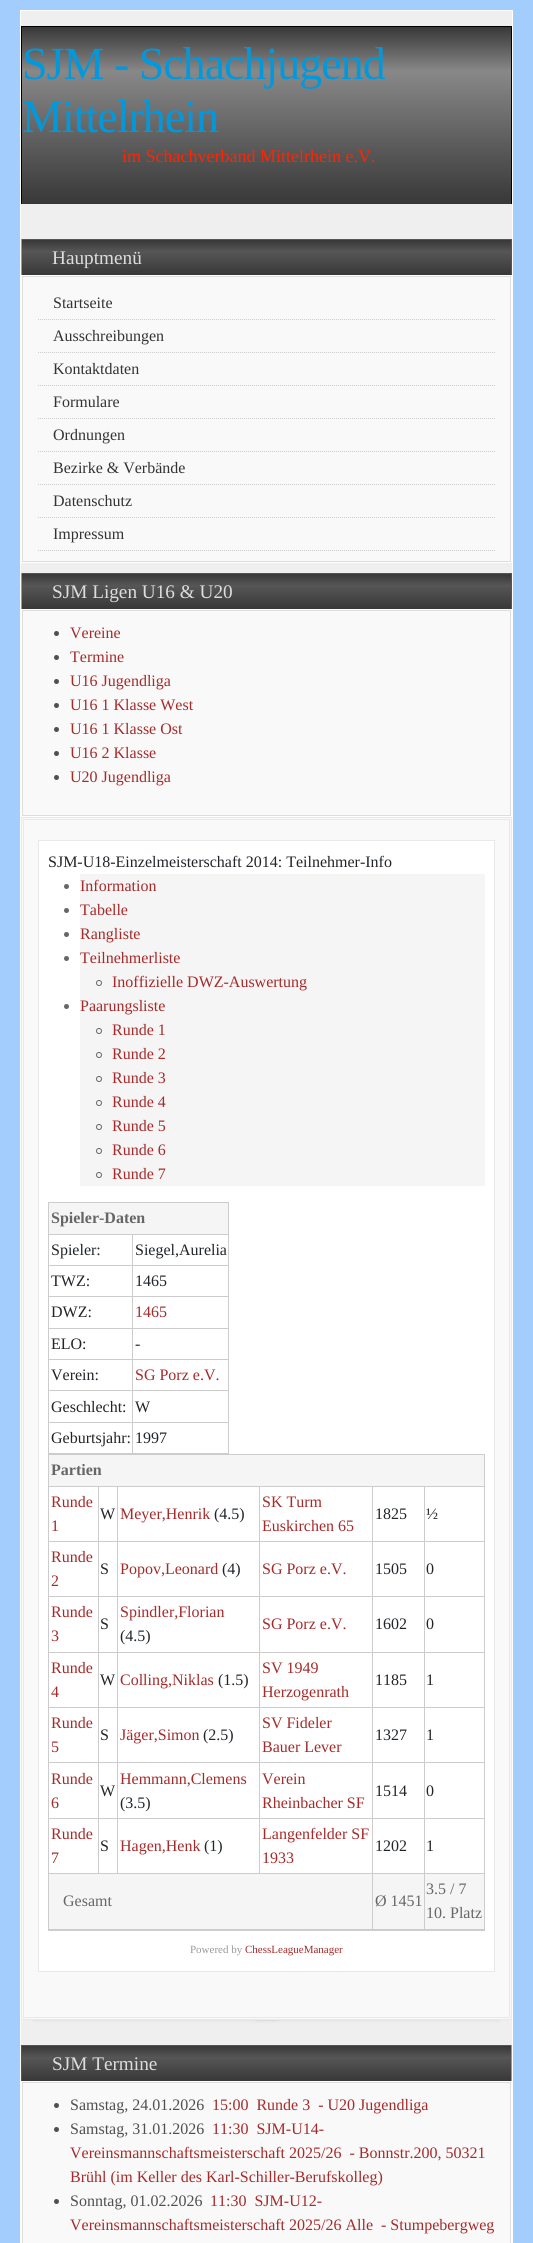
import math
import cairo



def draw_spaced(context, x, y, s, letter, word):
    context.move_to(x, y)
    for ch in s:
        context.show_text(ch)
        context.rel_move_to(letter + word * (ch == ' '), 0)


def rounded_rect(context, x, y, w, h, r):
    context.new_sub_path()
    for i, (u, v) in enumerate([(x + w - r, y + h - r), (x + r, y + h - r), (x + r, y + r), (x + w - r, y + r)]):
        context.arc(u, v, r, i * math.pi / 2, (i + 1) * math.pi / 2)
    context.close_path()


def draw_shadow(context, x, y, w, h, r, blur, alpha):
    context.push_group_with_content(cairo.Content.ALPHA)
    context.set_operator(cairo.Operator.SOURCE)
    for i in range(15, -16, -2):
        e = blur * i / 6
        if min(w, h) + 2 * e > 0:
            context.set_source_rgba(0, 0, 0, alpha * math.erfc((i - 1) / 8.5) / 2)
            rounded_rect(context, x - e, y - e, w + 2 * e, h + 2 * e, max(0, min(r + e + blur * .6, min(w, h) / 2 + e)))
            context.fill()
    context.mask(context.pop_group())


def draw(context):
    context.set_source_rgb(162 / 255, 205 / 255, 253 / 255)
    context.paint()
    context.set_source_rgb(239 / 255, 239 / 255, 239 / 255)
    context.rectangle(21, 11, 491, 2034)
    context.fill()
    context.rectangle(20.5, 10.5, 492, 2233)
    context.set_source_rgb(1, 1, 1)
    context.set_line_width(1)
    context.stroke()
    gradient = cairo.LinearGradient(267, 27, 267, 204)
    gradient.add_color_stop_rgba(0, 56 / 255, 56 / 255, 56 / 255, 1)
    gradient.add_color_stop_rgba(0.25, 136 / 255, 136 / 255, 136 / 255, 1)
    gradient.add_color_stop_rgba(1, 56 / 255, 56 / 255, 56 / 255, 1)
    context.set_source(gradient)
    context.rectangle(22, 27, 489, 177)
    context.fill()
    context.set_source_rgb(0, 0, 0)
    context.rectangle(21, 26, 491, 1)
    context.fill()
    context.rectangle(511, 26, 1, 178)
    context.fill()
    context.rectangle(21, 26, 1, 178)
    context.fill()
    gradient = cairo.LinearGradient(267, 240, 267, 275)
    gradient.add_color_stop_rgba(0, 56 / 255, 56 / 255, 56 / 255, 1)
    gradient.add_color_stop_rgba(0.33, 86 / 255, 86 / 255, 86 / 255, 1)
    gradient.add_color_stop_rgba(1, 56 / 255, 56 / 255, 56 / 255, 1)
    context.set_source(gradient)
    context.rectangle(22, 240, 489, 35)
    context.fill()
    context.set_source_rgb(85 / 255, 85 / 255, 85 / 255)
    context.rectangle(21, 239, 491, 1)
    context.fill()
    context.rectangle(511, 239, 1, 36)
    context.fill()
    context.set_source_rgb(153 / 255, 153 / 255, 153 / 255)
    context.rectangle(21, 239, 1, 36)
    context.fill()
    context.rectangle(21.5, 275.5, 490, 287)
    context.set_source_rgb(1, 1, 1)
    context.stroke()
    context.set_source_rgb(249 / 255, 249 / 255, 249 / 255)
    context.rectangle(22.5, 276.5, 488, 285)
    context.fill_preserve()
    context.set_source_rgb(221 / 255, 221 / 255, 221 / 255)
    context.stroke()
    context.new_path()
    context.move_to(38, 319.5)
    context.line_to(495, 319.5)
    context.set_source_rgb(204 / 255, 204 / 255, 204 / 255)
    context.set_dash([1, 1])
    context.stroke()
    context.new_path()
    context.move_to(38, 352.5)
    context.line_to(495, 352.5)
    context.stroke()
    context.new_path()
    context.move_to(38, 385.5)
    context.line_to(495, 385.5)
    context.stroke()
    context.new_path()
    context.move_to(38, 418.5)
    context.line_to(495, 418.5)
    context.stroke()
    context.new_path()
    context.move_to(38, 451.5)
    context.line_to(495, 451.5)
    context.stroke()
    context.new_path()
    context.move_to(38, 484.5)
    context.line_to(495, 484.5)
    context.stroke()
    context.new_path()
    context.move_to(38, 517.5)
    context.line_to(495, 517.5)
    context.stroke()
    context.new_path()
    context.move_to(38, 550.5)
    context.line_to(495, 550.5)
    context.stroke()
    gradient = cairo.LinearGradient(267, 574, 267, 609)
    gradient.add_color_stop_rgba(0, 56 / 255, 56 / 255, 56 / 255, 1)
    gradient.add_color_stop_rgba(0.33, 86 / 255, 86 / 255, 86 / 255, 1)
    gradient.add_color_stop_rgba(1, 56 / 255, 56 / 255, 56 / 255, 1)
    context.set_source(gradient)
    context.rectangle(22, 574, 489, 35)
    context.fill()
    context.set_source_rgb(85 / 255, 85 / 255, 85 / 255)
    context.rectangle(21, 573, 491, 1)
    context.fill()
    context.rectangle(511, 573, 1, 36)
    context.fill()
    context.set_source_rgb(153 / 255, 153 / 255, 153 / 255)
    context.rectangle(21, 573, 1, 36)
    context.fill()
    context.rectangle(21.5, 609.5, 490, 207)
    context.set_source_rgb(1, 1, 1)
    context.set_dash([])
    context.stroke()
    context.set_source_rgb(249 / 255, 249 / 255, 249 / 255)
    context.rectangle(22.5, 610.5, 488, 205)
    context.fill_preserve()
    context.set_source_rgb(221 / 255, 221 / 255, 221 / 255)
    context.stroke()
    context.set_source_rgb(80 / 255, 80 / 255, 80 / 255)
    context.arc(56.5, 633.5, 2.5, 0, 2 * math.pi)
    context.fill()
    context.arc(56.5, 657.5, 2.5, 0, 2 * math.pi)
    context.fill()
    context.arc(56.5, 681.5, 2.5, 0, 2 * math.pi)
    context.fill()
    context.arc(56.5, 705.5, 2.5, 0, 2 * math.pi)
    context.fill()
    context.arc(56.5, 729.5, 2.5, 0, 2 * math.pi)
    context.fill()
    context.arc(56.5, 753.5, 2.5, 0, 2 * math.pi)
    context.fill()
    context.arc(56.5, 777.5, 2.5, 0, 2 * math.pi)
    context.fill()
    context.set_source_rgb(120 / 255, 120 / 255, 120 / 255)
    draw_shadow(context, 34, 1783, 242, 234, 0, 2.5, 1)
    draw_shadow(context, 257, 1783, 242, 234, 0, 2.5, 1)
    context.set_source_rgb(249 / 255, 249 / 255, 249 / 255)
    context.rectangle(21.5, 817.5, 490, 1202)
    context.fill_preserve()
    context.set_source_rgb(233 / 255, 233 / 255, 233 / 255)
    context.stroke()
    context.rectangle(23.5, 819.5, 486, 1198)
    context.stroke()
    context.set_source_rgb(1, 1, 1)
    context.rectangle(38.5, 840.5, 456, 1131)
    context.fill_preserve()
    context.set_source_rgb(233 / 255, 233 / 255, 233 / 255)
    context.stroke()
    context.set_source_rgb(245 / 255, 245 / 255, 245 / 255)
    context.rectangle(80, 874, 405, 312)
    context.fill()
    context.set_source_rgb(102 / 255, 102 / 255, 102 / 255)
    context.arc(66.5, 886.5, 2.5, 0, 2 * math.pi)
    context.fill()
    context.arc(66.5, 910.5, 2.5, 0, 2 * math.pi)
    context.fill()
    context.arc(66.5, 934.5, 2.5, 0, 2 * math.pi)
    context.fill()
    context.arc(66.5, 958.5, 2.5, 0, 2 * math.pi)
    context.fill()
    context.arc(99, 983, 2.5, 0, 2 * math.pi)
    context.stroke()
    context.arc(66.5, 1006.5, 2.5, 0, 2 * math.pi)
    context.fill()
    context.arc(99, 1031, 2.5, 0, 2 * math.pi)
    context.stroke()
    context.arc(99, 1055, 2.5, 0, 2 * math.pi)
    context.stroke()
    context.arc(99, 1079, 2.5, 0, 2 * math.pi)
    context.stroke()
    context.arc(99, 1103, 2.5, 0, 2 * math.pi)
    context.stroke()
    context.arc(99, 1127, 2.5, 0, 2 * math.pi)
    context.stroke()
    context.arc(99, 1151, 2.5, 0, 2 * math.pi)
    context.stroke()
    context.arc(99, 1175, 2.5, 0, 2 * math.pi)
    context.stroke()
    context.set_source_rgb(245 / 255, 245 / 255, 245 / 255)
    context.rectangle(49, 1203, 179, 31)
    context.fill()
    context.set_source_rgb(204 / 255, 204 / 255, 204 / 255)
    context.rectangle(48, 1202, 181, 1)
    context.fill()
    context.rectangle(132, 1234, 97, 1)
    context.fill()
    context.rectangle(132, 1265, 97, 1)
    context.fill()
    context.rectangle(132, 1296, 97, 1)
    context.fill()
    context.rectangle(132, 1328, 97, 1)
    context.fill()
    context.rectangle(132, 1359, 97, 1)
    context.fill()
    context.rectangle(132, 1390, 97, 1)
    context.fill()
    context.rectangle(132, 1422, 97, 1)
    context.fill()
    context.rectangle(228, 1422, 1, 32)
    context.fill()
    context.rectangle(228, 1390, 1, 33)
    context.fill()
    context.rectangle(228, 1359, 1, 32)
    context.fill()
    context.rectangle(228, 1328, 1, 32)
    context.fill()
    context.rectangle(228, 1296, 1, 33)
    context.fill()
    context.rectangle(228, 1265, 1, 32)
    context.fill()
    context.rectangle(228, 1234, 1, 32)
    context.fill()
    context.rectangle(228, 1202, 1, 33)
    context.fill()
    context.rectangle(132, 1453, 97, 1)
    context.fill()
    context.rectangle(132, 1422, 1, 32)
    context.fill()
    context.rectangle(48, 1422, 85, 1)
    context.fill()
    context.rectangle(132, 1390, 1, 33)
    context.fill()
    context.rectangle(48, 1390, 85, 1)
    context.fill()
    context.rectangle(132, 1359, 1, 32)
    context.fill()
    context.rectangle(48, 1359, 85, 1)
    context.fill()
    context.rectangle(132, 1328, 1, 32)
    context.fill()
    context.rectangle(48, 1328, 85, 1)
    context.fill()
    context.rectangle(132, 1296, 1, 33)
    context.fill()
    context.rectangle(48, 1296, 85, 1)
    context.fill()
    context.rectangle(132, 1265, 1, 32)
    context.fill()
    context.rectangle(48, 1265, 85, 1)
    context.fill()
    context.rectangle(132, 1234, 1, 32)
    context.fill()
    context.rectangle(48, 1234, 85, 1)
    context.fill()
    context.rectangle(48, 1453, 85, 1)
    context.fill()
    context.rectangle(48, 1422, 1, 32)
    context.fill()
    context.rectangle(48, 1390, 1, 33)
    context.fill()
    context.rectangle(48, 1359, 1, 32)
    context.fill()
    context.rectangle(48, 1328, 1, 32)
    context.fill()
    context.rectangle(48, 1296, 1, 33)
    context.fill()
    context.rectangle(48, 1265, 1, 32)
    context.fill()
    context.rectangle(48, 1234, 1, 32)
    context.fill()
    context.rectangle(48, 1202, 1, 33)
    context.fill()
    context.set_source_rgb(245 / 255, 245 / 255, 245 / 255)
    context.rectangle(49, 1455, 435, 31)
    context.fill()
    context.set_source_rgb(204 / 255, 204 / 255, 204 / 255)
    context.rectangle(48, 1454, 437, 1)
    context.fill()
    context.rectangle(424, 1486, 61, 1)
    context.fill()
    context.rectangle(424, 1541, 61, 1)
    context.fill()
    context.rectangle(424, 1596, 61, 1)
    context.fill()
    context.rectangle(424, 1652, 61, 1)
    context.fill()
    context.rectangle(424, 1707, 61, 1)
    context.fill()
    context.rectangle(424, 1762, 61, 1)
    context.fill()
    context.rectangle(424, 1818, 61, 1)
    context.fill()
    context.rectangle(424, 1873, 61, 1)
    context.fill()
    context.rectangle(484, 1873, 1, 57)
    context.fill()
    context.rectangle(484, 1818, 1, 56)
    context.fill()
    context.rectangle(484, 1762, 1, 57)
    context.fill()
    context.rectangle(484, 1707, 1, 56)
    context.fill()
    context.rectangle(484, 1652, 1, 56)
    context.fill()
    context.rectangle(484, 1596, 1, 57)
    context.fill()
    context.rectangle(484, 1541, 1, 56)
    context.fill()
    context.rectangle(484, 1486, 1, 56)
    context.fill()
    context.rectangle(484, 1454, 1, 33)
    context.fill()
    context.set_source_rgb(245 / 255, 245 / 255, 245 / 255)
    context.rectangle(49, 1874, 435, 55)
    context.fill()
    context.set_source_rgb(204 / 255, 204 / 255, 204 / 255)
    context.rectangle(424, 1929, 61, 1)
    context.fill()
    context.rectangle(424, 1873, 1, 57)
    context.fill()
    context.rectangle(372, 1873, 53, 1)
    context.fill()
    context.rectangle(424, 1818, 1, 56)
    context.fill()
    context.rectangle(372, 1818, 53, 1)
    context.fill()
    context.rectangle(424, 1762, 1, 57)
    context.fill()
    context.rectangle(372, 1762, 53, 1)
    context.fill()
    context.rectangle(424, 1707, 1, 56)
    context.fill()
    context.rectangle(372, 1707, 53, 1)
    context.fill()
    context.rectangle(424, 1652, 1, 56)
    context.fill()
    context.rectangle(372, 1652, 53, 1)
    context.fill()
    context.rectangle(424, 1596, 1, 57)
    context.fill()
    context.rectangle(372, 1596, 53, 1)
    context.fill()
    context.rectangle(424, 1541, 1, 56)
    context.fill()
    context.rectangle(372, 1541, 53, 1)
    context.fill()
    context.rectangle(424, 1486, 1, 56)
    context.fill()
    context.rectangle(372, 1486, 53, 1)
    context.fill()
    context.rectangle(372, 1929, 53, 1)
    context.fill()
    context.rectangle(372, 1873, 1, 57)
    context.fill()
    context.rectangle(48, 1873, 325, 1)
    context.fill()
    context.rectangle(372, 1818, 1, 56)
    context.fill()
    context.rectangle(259, 1818, 114, 1)
    context.fill()
    context.rectangle(372, 1762, 1, 57)
    context.fill()
    context.rectangle(259, 1762, 114, 1)
    context.fill()
    context.rectangle(372, 1707, 1, 56)
    context.fill()
    context.rectangle(259, 1707, 114, 1)
    context.fill()
    context.rectangle(372, 1652, 1, 56)
    context.fill()
    context.rectangle(259, 1652, 114, 1)
    context.fill()
    context.rectangle(372, 1596, 1, 57)
    context.fill()
    context.rectangle(259, 1596, 114, 1)
    context.fill()
    context.rectangle(372, 1541, 1, 56)
    context.fill()
    context.rectangle(259, 1541, 114, 1)
    context.fill()
    context.rectangle(372, 1486, 1, 56)
    context.fill()
    context.rectangle(259, 1486, 114, 1)
    context.fill()
    context.rectangle(259, 1818, 1, 56)
    context.fill()
    context.rectangle(117, 1818, 143, 1)
    context.fill()
    context.rectangle(259, 1762, 1, 57)
    context.fill()
    context.rectangle(117, 1762, 143, 1)
    context.fill()
    context.rectangle(259, 1707, 1, 56)
    context.fill()
    context.rectangle(117, 1707, 143, 1)
    context.fill()
    context.rectangle(259, 1652, 1, 56)
    context.fill()
    context.rectangle(117, 1652, 143, 1)
    context.fill()
    context.rectangle(259, 1596, 1, 57)
    context.fill()
    context.rectangle(117, 1596, 143, 1)
    context.fill()
    context.rectangle(259, 1541, 1, 56)
    context.fill()
    context.rectangle(117, 1541, 143, 1)
    context.fill()
    context.rectangle(259, 1486, 1, 56)
    context.fill()
    context.rectangle(117, 1486, 143, 1)
    context.fill()
    context.rectangle(117, 1818, 1, 56)
    context.fill()
    context.rectangle(98, 1818, 20, 1)
    context.fill()
    context.rectangle(117, 1762, 1, 57)
    context.fill()
    context.rectangle(98, 1762, 20, 1)
    context.fill()
    context.rectangle(117, 1707, 1, 56)
    context.fill()
    context.rectangle(98, 1707, 20, 1)
    context.fill()
    context.rectangle(117, 1652, 1, 56)
    context.fill()
    context.rectangle(98, 1652, 20, 1)
    context.fill()
    context.rectangle(117, 1596, 1, 57)
    context.fill()
    context.rectangle(98, 1596, 20, 1)
    context.fill()
    context.rectangle(117, 1541, 1, 56)
    context.fill()
    context.rectangle(98, 1541, 20, 1)
    context.fill()
    context.rectangle(117, 1486, 1, 56)
    context.fill()
    context.rectangle(98, 1486, 20, 1)
    context.fill()
    context.rectangle(98, 1818, 1, 56)
    context.fill()
    context.rectangle(48, 1818, 51, 1)
    context.fill()
    context.rectangle(98, 1762, 1, 57)
    context.fill()
    context.rectangle(48, 1762, 51, 1)
    context.fill()
    context.rectangle(98, 1707, 1, 56)
    context.fill()
    context.rectangle(48, 1707, 51, 1)
    context.fill()
    context.rectangle(98, 1652, 1, 56)
    context.fill()
    context.rectangle(48, 1652, 51, 1)
    context.fill()
    context.rectangle(98, 1596, 1, 57)
    context.fill()
    context.rectangle(48, 1596, 51, 1)
    context.fill()
    context.rectangle(98, 1541, 1, 56)
    context.fill()
    context.rectangle(48, 1541, 51, 1)
    context.fill()
    context.rectangle(98, 1486, 1, 56)
    context.fill()
    context.rectangle(48, 1486, 51, 1)
    context.fill()
    context.rectangle(48, 1929, 325, 1)
    context.fill()
    context.rectangle(48, 1873, 1, 57)
    context.fill()
    context.rectangle(48, 1818, 1, 56)
    context.fill()
    context.rectangle(48, 1762, 1, 57)
    context.fill()
    context.rectangle(48, 1707, 1, 56)
    context.fill()
    context.rectangle(48, 1652, 1, 56)
    context.fill()
    context.rectangle(48, 1596, 1, 57)
    context.fill()
    context.rectangle(48, 1541, 1, 56)
    context.fill()
    context.rectangle(48, 1486, 1, 56)
    context.fill()
    context.rectangle(48, 1454, 1, 33)
    context.fill()
    context.rectangle(48, 1930, 437, 1)
    context.fill()
    gradient = cairo.LinearGradient(267, 2046, 267, 2081)
    gradient.add_color_stop_rgba(0, 56 / 255, 56 / 255, 56 / 255, 1)
    gradient.add_color_stop_rgba(0.33, 86 / 255, 86 / 255, 86 / 255, 1)
    gradient.add_color_stop_rgba(1, 56 / 255, 56 / 255, 56 / 255, 1)
    context.set_source(gradient)
    context.rectangle(22, 2046, 489, 35)
    context.fill()
    context.set_source_rgb(85 / 255, 85 / 255, 85 / 255)
    context.rectangle(21, 2045, 491, 1)
    context.fill()
    context.set_source_rgb(153 / 255, 153 / 255, 153 / 255)
    context.rectangle(511, 2045, 1, 36)
    context.fill()
    context.set_source_rgb(85 / 255, 85 / 255, 85 / 255)
    context.rectangle(21, 2045, 1, 36)
    context.fill()
    context.rectangle(21.5, 2081.5, 490, 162)
    context.set_source_rgb(1, 1, 1)
    context.stroke()
    context.set_source_rgb(249 / 255, 249 / 255, 249 / 255)
    context.rectangle(22.5, 2082.5, 488, 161)
    context.fill_preserve()
    context.set_source_rgb(221 / 255, 221 / 255, 221 / 255)
    context.stroke()
    context.set_source_rgb(80 / 255, 80 / 255, 80 / 255)
    context.arc(56.5, 2105.5, 2.5, 0, 2 * math.pi)
    context.fill()
    context.arc(56.5, 2129.5, 2.5, 0, 2 * math.pi)
    context.fill()
    context.arc(56.5, 2201.5, 2.5, 0, 2 * math.pi)
    context.fill()
    context.select_font_face("Liberation Serif")
    context.set_font_size(46)
    context.set_source_rgb(2 / 255, 153 / 255, 220 / 255)
    draw_spaced(context, 22, 79, "SJM - Schachjugend", -1, 0)
    draw_spaced(context, 22, 132, "Mittelrhein", -1, 0)
    context.set_font_size(18)
    context.set_source_rgb(1, 36 / 255, 2 / 255)
    context.move_to(122, 162)
    context.show_text("im Schachverband Mittelrhein e.V.")
    context.set_font_size(19.25)
    context.set_source_rgb(221 / 255, 221 / 255, 221 / 255)
    context.move_to(52, 264)
    context.show_text("Hauptmenü")
    context.set_font_size(16)
    context.set_source_rgb(51 / 255, 51 / 255, 51 / 255)
    context.move_to(53, 308)
    context.show_text("Startseite")
    context.move_to(53, 341)
    context.show_text("Ausschreibungen")
    context.move_to(53, 374)
    context.show_text("Kontaktdaten")
    context.move_to(53, 407)
    context.show_text("Formulare")
    context.move_to(53, 440)
    context.show_text("Ordnungen")
    context.move_to(53, 473)
    context.show_text("Bezirke & Verbände")
    context.move_to(53, 506)
    context.show_text("Datenschutz")
    context.move_to(53, 539)
    context.show_text("Impressum")
    context.set_font_size(19.25)
    context.set_source_rgb(221 / 255, 221 / 255, 221 / 255)
    context.move_to(52, 598)
    context.show_text("SJM Ligen U16 & U20")
    context.set_font_size(16)
    context.set_source_rgb(165 / 255, 42 / 255, 42 / 255)
    context.move_to(70, 638)
    context.show_text("Vereine")
    context.move_to(70, 662)
    context.show_text("Termine")
    context.move_to(70, 686)
    context.show_text("U16 Jugendliga")
    context.move_to(70, 710)
    context.show_text("U16 1 Klasse West")
    context.move_to(70, 734)
    context.show_text("U16 1 Klasse Ost")
    context.move_to(70, 758)
    context.show_text("U16 2 Klasse")
    context.move_to(70, 782)
    context.show_text("U20 Jugendliga")
    context.set_source_rgb(33 / 255, 37 / 255, 41 / 255)
    context.move_to(48, 867)
    context.show_text("SJM-U18-Einzelmeisterschaft 2014: Teilnehmer-Info")
    context.set_source_rgb(165 / 255, 42 / 255, 42 / 255)
    context.move_to(80, 891)
    context.show_text("Information")
    context.move_to(80, 915)
    context.show_text("Tabelle")
    context.move_to(80, 939)
    context.show_text("Rangliste")
    context.move_to(80, 963)
    context.show_text("Teilnehmerliste")
    context.move_to(112, 987)
    context.show_text("Inoffizielle DWZ-Auswertung")
    context.move_to(80, 1011)
    context.show_text("Paarungsliste")
    context.move_to(112, 1035)
    context.show_text("Runde 1")
    context.move_to(112, 1059)
    context.show_text("Runde 2")
    context.move_to(112, 1083)
    context.show_text("Runde 3")
    context.move_to(112, 1107)
    context.show_text("Runde 4")
    context.move_to(112, 1131)
    context.show_text("Runde 5")
    context.move_to(112, 1155)
    context.show_text("Runde 6")
    context.move_to(112, 1179)
    context.show_text("Runde 7")
    context.select_font_face("Liberation Serif", cairo.FontSlant.NORMAL, cairo.FontWeight.BOLD)
    context.set_source_rgb(102 / 255, 102 / 255, 102 / 255)
    context.move_to(51, 1223)
    context.show_text("Spieler-Daten")
    context.select_font_face("Liberation Serif")
    context.set_source_rgb(33 / 255, 37 / 255, 41 / 255)
    context.move_to(51, 1255)
    context.show_text("Spieler:")
    context.move_to(135, 1255)
    context.show_text("Siegel,Aurelia")
    context.move_to(51, 1286)
    context.show_text("TWZ:")
    context.move_to(135, 1286)
    context.show_text("1465")
    context.move_to(51, 1317)
    context.show_text("DWZ:")
    context.set_source_rgb(165 / 255, 42 / 255, 42 / 255)
    context.move_to(135, 1317)
    context.show_text("1465")
    context.set_source_rgb(33 / 255, 37 / 255, 41 / 255)
    context.move_to(51, 1349)
    context.show_text("ELO:")
    context.move_to(135, 1349)
    context.show_text("-")
    context.move_to(51, 1380)
    context.show_text("Verein:")
    context.set_source_rgb(165 / 255, 42 / 255, 42 / 255)
    context.move_to(135, 1380)
    context.show_text("SG Porz e.V.")
    context.set_source_rgb(33 / 255, 37 / 255, 41 / 255)
    context.move_to(51, 1412)
    context.show_text("Geschlecht:")
    context.move_to(135, 1412)
    context.show_text("W")
    context.move_to(51, 1443)
    context.show_text("Geburtsjahr: 1997")
    context.select_font_face("Liberation Serif", cairo.FontSlant.NORMAL, cairo.FontWeight.BOLD)
    context.set_source_rgb(102 / 255, 102 / 255, 102 / 255)
    context.move_to(51, 1475)
    context.show_text("Partien")
    context.select_font_face("Liberation Serif")
    context.set_source_rgb(165 / 255, 42 / 255, 42 / 255)
    context.move_to(51, 1507)
    context.show_text("Runde")
    context.move_to(51, 1531)
    context.show_text("1")
    context.set_source_rgb(33 / 255, 37 / 255, 41 / 255)
    context.move_to(100, 1519)
    context.show_text("W")
    context.set_source_rgb(165 / 255, 42 / 255, 42 / 255)
    context.move_to(120, 1519)
    context.show_text("Meyer,Henrik")
    context.set_source_rgb(33 / 255, 37 / 255, 41 / 255)
    context.move_to(214, 1519)
    context.show_text("(4.5)")
    context.set_source_rgb(165 / 255, 42 / 255, 42 / 255)
    context.move_to(262, 1507)
    context.show_text("SK Turm")
    context.move_to(262, 1531)
    context.show_text("Euskirchen 65")
    context.set_source_rgb(33 / 255, 37 / 255, 41 / 255)
    context.move_to(375, 1519)
    context.show_text("1825")
    context.move_to(426, 1519)
    context.show_text("½")
    context.set_source_rgb(165 / 255, 42 / 255, 42 / 255)
    context.move_to(51, 1562)
    context.show_text("Runde")
    context.move_to(51, 1586)
    context.show_text("2")
    context.set_source_rgb(33 / 255, 37 / 255, 41 / 255)
    context.move_to(100, 1574)
    context.show_text("S")
    context.set_source_rgb(165 / 255, 42 / 255, 42 / 255)
    context.move_to(120, 1574)
    context.show_text("Popov,Leonard")
    context.set_source_rgb(33 / 255, 37 / 255, 41 / 255)
    context.move_to(222, 1574)
    context.show_text("(4)")
    context.set_source_rgb(165 / 255, 42 / 255, 42 / 255)
    context.move_to(262, 1574)
    context.show_text("SG Porz e.V.")
    context.set_source_rgb(33 / 255, 37 / 255, 41 / 255)
    context.move_to(375, 1574)
    context.show_text("1505")
    context.move_to(426, 1574)
    context.show_text("0")
    context.set_source_rgb(165 / 255, 42 / 255, 42 / 255)
    context.move_to(51, 1617)
    context.show_text("Runde")
    context.move_to(51, 1641)
    context.show_text("3")
    context.set_source_rgb(33 / 255, 37 / 255, 41 / 255)
    context.move_to(100, 1629)
    context.show_text("S")
    context.set_source_rgb(165 / 255, 42 / 255, 42 / 255)
    context.move_to(120, 1617)
    context.show_text("Spindler,Florian")
    context.set_source_rgb(33 / 255, 37 / 255, 41 / 255)
    context.move_to(120, 1641)
    context.show_text("(4.5)")
    context.set_source_rgb(165 / 255, 42 / 255, 42 / 255)
    context.move_to(262, 1629)
    context.show_text("SG Porz e.V.")
    context.set_source_rgb(33 / 255, 37 / 255, 41 / 255)
    context.move_to(375, 1629)
    context.show_text("1602")
    context.move_to(426, 1629)
    context.show_text("0")
    context.set_source_rgb(165 / 255, 42 / 255, 42 / 255)
    context.move_to(51, 1673)
    context.show_text("Runde")
    context.move_to(51, 1697)
    context.show_text("4")
    context.set_source_rgb(33 / 255, 37 / 255, 41 / 255)
    context.move_to(100, 1685)
    context.show_text("W")
    context.set_source_rgb(165 / 255, 42 / 255, 42 / 255)
    context.move_to(120, 1685)
    context.show_text("Colling,Niklas")
    context.set_source_rgb(33 / 255, 37 / 255, 41 / 255)
    context.move_to(218, 1685)
    context.show_text("(1.5)")
    context.set_source_rgb(165 / 255, 42 / 255, 42 / 255)
    context.move_to(262, 1673)
    context.show_text("SV 1949")
    context.move_to(262, 1697)
    context.show_text("Herzogenrath")
    context.set_source_rgb(33 / 255, 37 / 255, 41 / 255)
    context.move_to(375, 1685)
    context.show_text("1185")
    context.move_to(426, 1685)
    context.show_text("1")
    context.set_source_rgb(165 / 255, 42 / 255, 42 / 255)
    context.move_to(51, 1728)
    context.show_text("Runde")
    context.move_to(51, 1752)
    context.show_text("5")
    context.set_source_rgb(33 / 255, 37 / 255, 41 / 255)
    context.move_to(100, 1740)
    context.show_text("S")
    context.set_source_rgb(165 / 255, 42 / 255, 42 / 255)
    context.move_to(120, 1740)
    context.show_text("Jäger,Simon")
    context.set_source_rgb(33 / 255, 37 / 255, 41 / 255)
    context.move_to(203, 1740)
    context.show_text("(2.5)")
    context.set_source_rgb(165 / 255, 42 / 255, 42 / 255)
    context.move_to(262, 1728)
    context.show_text("SV Fideler")
    context.move_to(262, 1752)
    context.show_text("Bauer Lever")
    context.set_source_rgb(33 / 255, 37 / 255, 41 / 255)
    context.move_to(375, 1740)
    context.show_text("1327")
    context.move_to(426, 1740)
    context.show_text("1")
    context.set_source_rgb(165 / 255, 42 / 255, 42 / 255)
    context.move_to(51, 1784)
    context.show_text("Runde")
    context.move_to(51, 1808)
    context.show_text("6")
    context.set_source_rgb(33 / 255, 37 / 255, 41 / 255)
    context.move_to(100, 1796)
    context.show_text("W")
    context.set_source_rgb(165 / 255, 42 / 255, 42 / 255)
    context.move_to(120, 1784)
    context.show_text("Hemmann,Clemens")
    context.set_source_rgb(33 / 255, 37 / 255, 41 / 255)
    context.move_to(120, 1808)
    context.show_text("(3.5)")
    context.set_source_rgb(165 / 255, 42 / 255, 42 / 255)
    context.move_to(262, 1784)
    context.show_text("Verein")
    context.move_to(262, 1808)
    context.show_text("Rheinbacher SF")
    context.set_source_rgb(33 / 255, 37 / 255, 41 / 255)
    context.move_to(375, 1796)
    context.show_text("1514")
    context.move_to(426, 1796)
    context.show_text("0")
    context.set_source_rgb(165 / 255, 42 / 255, 42 / 255)
    context.move_to(51, 1839)
    context.show_text("Runde")
    context.move_to(51, 1863)
    context.show_text("7")
    context.set_source_rgb(33 / 255, 37 / 255, 41 / 255)
    context.move_to(100, 1851)
    context.show_text("S")
    context.set_source_rgb(165 / 255, 42 / 255, 42 / 255)
    context.move_to(120, 1851)
    context.show_text("Hagen,Henk")
    context.set_source_rgb(33 / 255, 37 / 255, 41 / 255)
    context.move_to(204, 1851)
    context.show_text("(1)")
    context.set_source_rgb(165 / 255, 42 / 255, 42 / 255)
    context.move_to(262, 1839)
    context.show_text("Langenfelder SF")
    context.move_to(262, 1863)
    context.show_text("1933")
    context.set_source_rgb(33 / 255, 37 / 255, 41 / 255)
    context.move_to(375, 1851)
    context.show_text("1202")
    context.move_to(426, 1851)
    context.show_text("1")
    context.set_source_rgb(102 / 255, 102 / 255, 102 / 255)
    context.move_to(63, 1906)
    context.show_text("Gesamt")
    context.move_to(375, 1906)
    context.show_text("Ø 1451")
    context.move_to(426, 1894)
    context.show_text("3.5 / 7")
    context.move_to(426, 1918)
    context.show_text("10. Platz")
    context.set_font_size(11)
    context.set_source_rgb(153 / 255, 153 / 255, 153 / 255)
    context.move_to(190, 1953)
    context.show_text("Powered by")
    context.set_source_rgb(165 / 255, 42 / 255, 42 / 255)
    context.move_to(245, 1953)
    context.show_text("ChessLeagueManager")
    context.set_font_size(19.25)
    context.set_source_rgb(221 / 255, 221 / 255, 221 / 255)
    context.move_to(52, 2070)
    context.show_text("SJM Termine")
    context.set_font_size(16)
    context.set_source_rgb(80 / 255, 80 / 255, 80 / 255)
    context.move_to(70, 2110)
    context.show_text("Samstag, 24.01.2026")
    context.set_source_rgb(165 / 255, 42 / 255, 42 / 255)
    context.move_to(212, 2110)
    context.show_text("15:00  Runde 3  - U20 Jugendliga")
    context.set_source_rgb(80 / 255, 80 / 255, 80 / 255)
    context.move_to(70, 2134)
    context.show_text("Samstag, 31.01.2026")
    context.set_source_rgb(165 / 255, 42 / 255, 42 / 255)
    context.move_to(212, 2134)
    context.show_text("11:30  SJM-U14-")
    context.move_to(70, 2158)
    context.show_text("Vereinsmannschaftsmeisterschaft 2025/26  - Bonnstr.200, 50321")
    context.move_to(70, 2182)
    context.show_text("Brühl (im Keller des Karl-Schiller-Berufskolleg)")
    context.set_source_rgb(80 / 255, 80 / 255, 80 / 255)
    context.move_to(70, 2206)
    context.show_text("Sonntag, 01.02.2026")
    context.set_source_rgb(165 / 255, 42 / 255, 42 / 255)
    context.move_to(210, 2206)
    context.show_text("11:30  SJM-U12-")
    context.move_to(70, 2230)
    context.show_text("Vereinsmannschaftsmeisterschaft 2025/26 Alle  - Stumpebergweg")


surface = cairo.ImageSurface(cairo.Format.RGB24, 533, 2243)
context = cairo.Context(surface)
options = cairo.FontOptions()
options.set_hint_metrics(cairo.HintMetrics.OFF)
options.set_hint_style(cairo.HintStyle.NONE)
context.set_font_options(options)
context.set_miter_limit(4)
draw(context)
surface.write_to_png("out.png")
